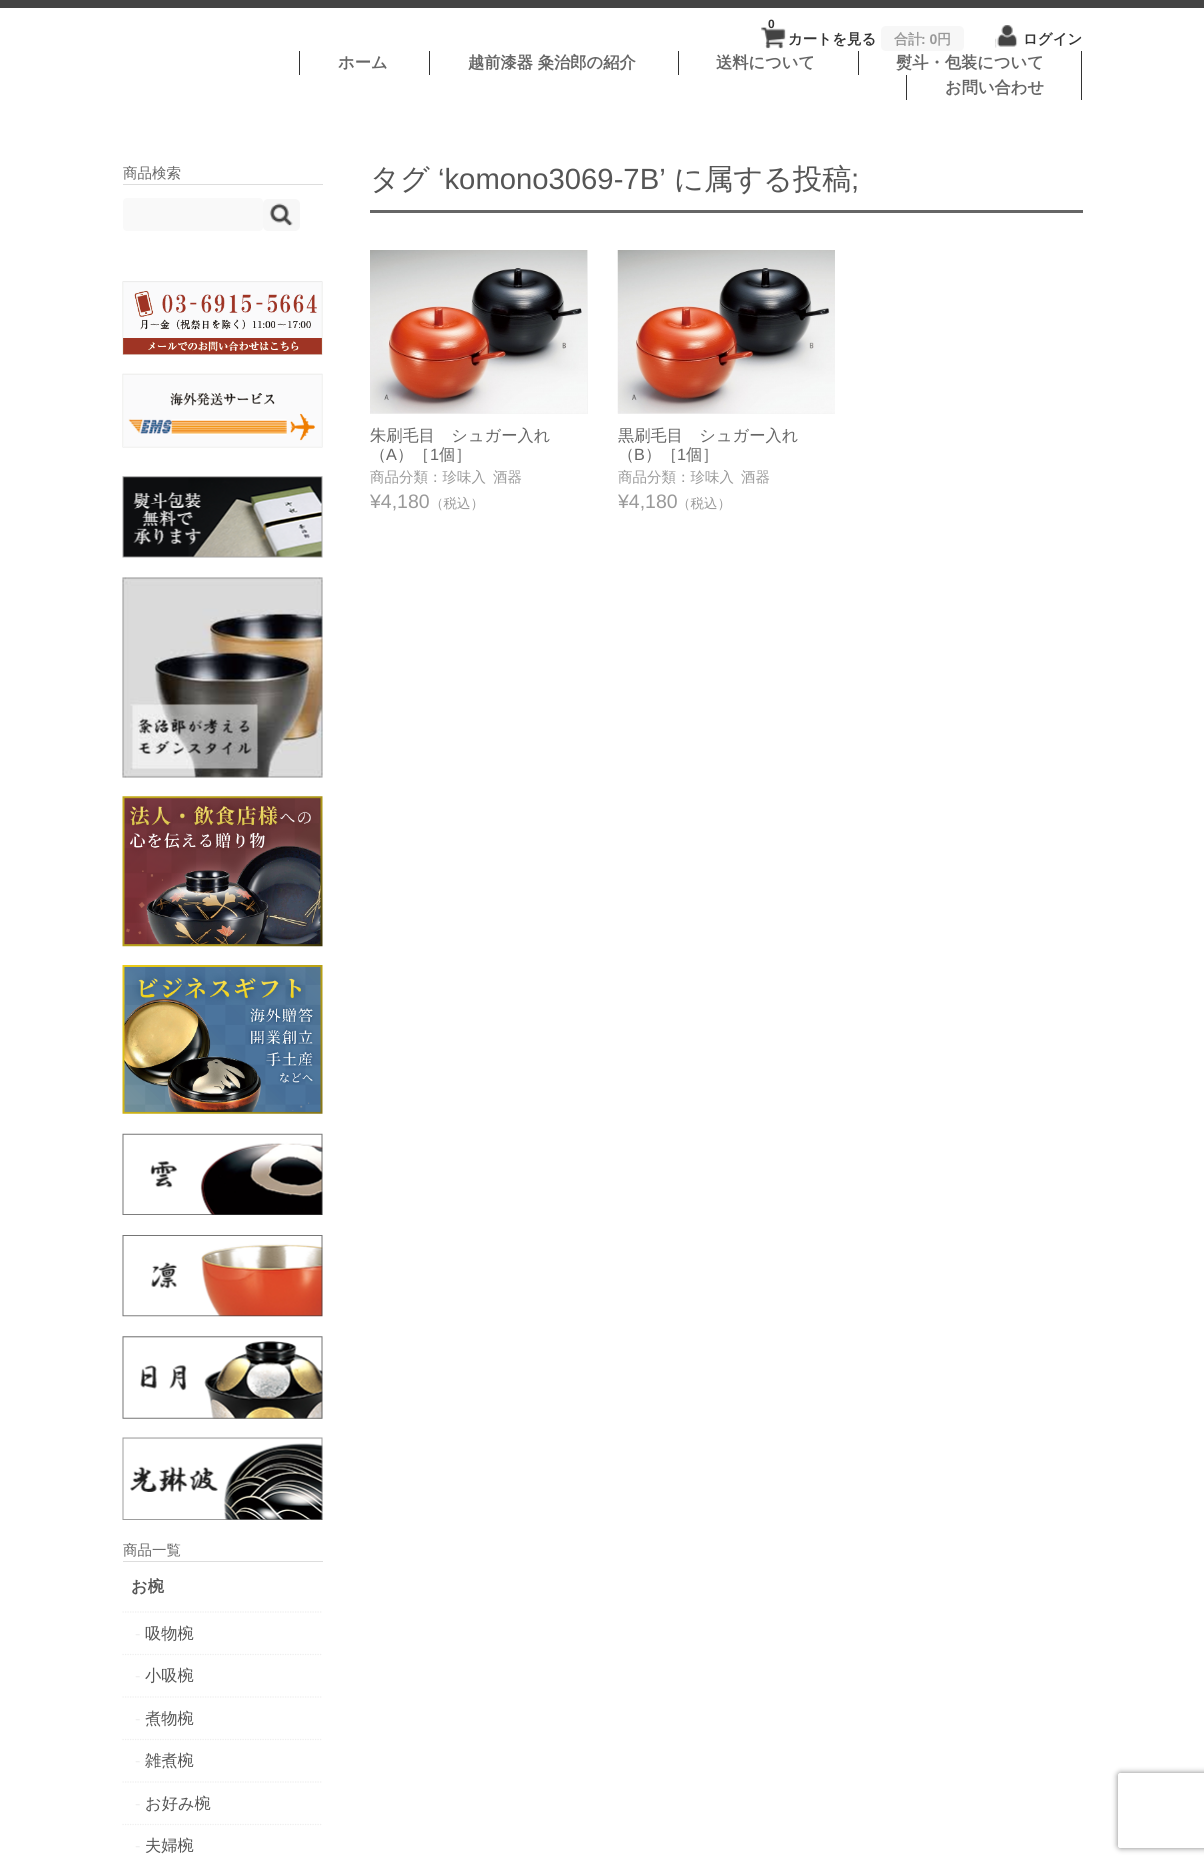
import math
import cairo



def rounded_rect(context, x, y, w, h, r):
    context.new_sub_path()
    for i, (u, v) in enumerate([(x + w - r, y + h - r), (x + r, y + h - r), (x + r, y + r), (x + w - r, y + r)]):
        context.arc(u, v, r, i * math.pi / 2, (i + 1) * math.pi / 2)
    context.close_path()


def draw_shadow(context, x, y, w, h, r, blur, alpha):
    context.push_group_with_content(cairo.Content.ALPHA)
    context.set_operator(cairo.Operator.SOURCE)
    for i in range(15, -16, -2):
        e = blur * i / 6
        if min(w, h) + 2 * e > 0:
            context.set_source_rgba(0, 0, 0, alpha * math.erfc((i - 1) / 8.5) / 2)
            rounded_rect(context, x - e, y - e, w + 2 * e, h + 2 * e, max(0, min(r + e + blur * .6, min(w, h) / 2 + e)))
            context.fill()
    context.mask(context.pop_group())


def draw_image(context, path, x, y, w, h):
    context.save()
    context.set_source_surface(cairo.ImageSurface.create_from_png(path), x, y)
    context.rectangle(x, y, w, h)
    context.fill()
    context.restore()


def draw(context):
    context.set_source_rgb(1, 1, 1)
    context.paint()
    context.set_source_rgb(68 / 255, 68 / 255, 68 / 255)
    context.rectangle(0, 0, 1204, 8)
    context.fill()
    draw_image(context, "images/1.png", 761, 27, 25, 22)
    context.set_source_rgb(247 / 255, 247 / 255, 247 / 255)
    context.new_path()
    context.move_to(886, 26)
    context.line_to(930, 26)
    context.line_to(930, 51)
    context.line_to(886, 51)
    context.curve_to(883, 51, 881, 49, 881, 46)
    context.line_to(881, 31)
    context.curve_to(881, 28, 883, 26, 886, 26)
    context.close_path()
    context.fill()
    context.new_path()
    context.move_to(930, 26)
    context.line_to(959, 26)
    context.curve_to(962, 26, 964, 28, 964, 31)
    context.line_to(964, 46)
    context.curve_to(964, 49, 962, 51, 959, 51)
    context.line_to(930, 51)
    context.close_path()
    context.fill()
    draw_image(context, "images/2.png", 995, 25, 23, 23)
    context.set_source_rgb(51 / 255, 51 / 255, 51 / 255)
    context.rectangle(1081, 51, 1, 49)
    context.fill()
    context.rectangle(299, 51, 1, 24)
    context.fill()
    context.rectangle(429, 51, 1, 24)
    context.fill()
    context.rectangle(678, 51, 1, 24)
    context.fill()
    context.rectangle(858, 51, 1, 24)
    context.fill()
    context.rectangle(906, 75, 1, 25)
    context.fill()
    context.set_source_rgb(221 / 255, 221 / 255, 221 / 255)
    context.rectangle(123, 184, 200, 1)
    context.fill()
    context.set_source_rgb(249 / 255, 249 / 255, 249 / 255)
    rounded_rect(context, 123, 198, 140, 33, 4)
    context.fill()
    context.set_source_rgb(247 / 255, 247 / 255, 247 / 255)
    rounded_rect(context, 263, 199, 37, 32, 5)
    context.fill()
    draw_image(context, "images/3.png", 269, 203, 24, 23)
    draw_image(context, "images/4.png", 122, 281, 201, 74)
    draw_image(context, "images/5.png", 122, 373, 201, 75)
    draw_image(context, "images/6.png", 122, 476, 201, 82)
    draw_image(context, "images/7.png", 122, 577, 201, 201)
    draw_image(context, "images/8.png", 122, 796, 201, 151)
    draw_image(context, "images/9.png", 122, 965, 201, 149)
    draw_image(context, "images/10.png", 122, 1133, 201, 82)
    draw_image(context, "images/11.png", 122, 1235, 201, 82)
    draw_image(context, "images/12.png", 122, 1336, 201, 83)
    draw_image(context, "images/13.png", 122, 1437, 201, 83)
    context.set_source_rgb(221 / 255, 221 / 255, 221 / 255)
    context.rectangle(123, 1561, 200, 1)
    context.fill()
    context.new_path()
    context.move_to(122.5, 1612)
    context.line_to(322.5, 1612)
    context.set_source_rgb(238 / 255, 238 / 255, 238 / 255)
    context.set_line_width(1.2)
    context.set_dash([1.25, 1.25])
    context.stroke()
    context.new_path()
    context.move_to(122.5, 1654.5)
    context.line_to(322.5, 1654.5)
    context.stroke()
    context.new_path()
    context.move_to(122.5, 1697)
    context.line_to(322.5, 1697)
    context.stroke()
    context.new_path()
    context.move_to(122.5, 1739.5)
    context.line_to(322.5, 1739.5)
    context.stroke()
    context.new_path()
    context.move_to(122.5, 1782)
    context.line_to(322.5, 1782)
    context.stroke()
    context.new_path()
    context.move_to(122.5, 1824.5)
    context.line_to(322.5, 1824.5)
    context.stroke()
    context.set_source_rgb(102 / 255, 102 / 255, 102 / 255)
    context.rectangle(370, 210, 713, 3)
    context.fill()
    context.set_source_rgb(243 / 255, 243 / 255, 243 / 255)
    context.rectangle(370, 250, 218, 164)
    context.fill()
    draw_image(context, "images/14.png", 370, 250, 218, 164)
    context.rectangle(618, 413, 217, 1)
    context.fill()
    draw_image(context, "images/15.png", 617, 250, 218, 164)
    context.save()
    context.set_fill_rule(cairo.FillRule.EVEN_ODD)
    context.new_path()
    context.move_to(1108, 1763)
    context.line_to(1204, 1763)
    context.line_to(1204, 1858)
    context.line_to(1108, 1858)
    context.close_path()
    context.move_to(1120.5, 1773)
    context.line_to(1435.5, 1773)
    context.curve_to(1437, 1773, 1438, 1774, 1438, 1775.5)
    context.line_to(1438, 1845.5)
    context.curve_to(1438, 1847, 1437, 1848, 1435.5, 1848)
    context.line_to(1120.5, 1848)
    context.curve_to(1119, 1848, 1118, 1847, 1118, 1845.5)
    context.line_to(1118, 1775.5)
    context.curve_to(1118, 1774, 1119, 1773, 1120.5, 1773)
    context.close_path()
    context.clip()
    context.set_source_rgb(128 / 255, 128 / 255, 128 / 255)
    draw_shadow(context, 1118, 1773, 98, 75, 2.5, 3, 1)
    context.restore()
    context.select_font_face("Liberation Sans", cairo.FontSlant.NORMAL, cairo.FontWeight.BOLD)
    context.set_font_size(12)
    context.set_source_rgb(51 / 255, 51 / 255, 51 / 255)
    context.move_to(768, 28)
    context.show_text("0")
    context.select_font_face("WenQuanYi Zen Hei", cairo.FontSlant.NORMAL, cairo.FontWeight.BOLD)
    context.set_font_size(14.5)
    context.move_to(788, 44)
    context.show_text("カートを見る")
    context.set_font_size(14)
    context.set_source_rgb(153 / 255, 153 / 255, 153 / 255)
    context.move_to(894, 44)
    context.show_text("合計")
    context.select_font_face("Liberation Sans", cairo.FontSlant.NORMAL, cairo.FontWeight.BOLD)
    context.move_to(921, 44)
    context.show_text(": 0")
    context.select_font_face("WenQuanYi Zen Hei", cairo.FontSlant.NORMAL, cairo.FontWeight.BOLD)
    context.move_to(937, 44)
    context.show_text("円")
    context.set_font_size(14.5)
    context.set_source_rgb(51 / 255, 51 / 255, 51 / 255)
    context.move_to(1023, 44)
    context.show_text("ログイン")
    context.set_font_size(16.25)
    context.set_source_rgb(102 / 255, 102 / 255, 102 / 255)
    context.move_to(338, 68)
    context.show_text("ホーム")
    context.move_to(468, 68)
    context.show_text("越前漆器 粂治郎の紹介")
    context.move_to(716, 68)
    context.show_text("送料について")
    context.move_to(896, 68)
    context.show_text("熨斗・包装について")
    context.move_to(945, 93)
    context.show_text("お問い合わせ")
    context.select_font_face("WenQuanYi Zen Hei Medium")
    context.set_font_size(14.5)
    context.move_to(123, 178)
    context.show_text("商品検索")
    context.move_to(123, 1555)
    context.show_text("商品一覧")
    context.select_font_face("WenQuanYi Zen Hei", cairo.FontSlant.NORMAL, cairo.FontWeight.BOLD)
    context.set_font_size(16.25)
    context.set_source_rgb(85 / 255, 85 / 255, 85 / 255)
    context.move_to(131, 1592)
    context.show_text("お椀")
    context.select_font_face("Liberation Sans")
    context.set_source_rgb(238 / 255, 238 / 255, 238 / 255)
    context.move_to(135, 1639)
    context.show_text("-")
    context.select_font_face("WenQuanYi Zen Hei Medium")
    context.set_source_rgb(85 / 255, 85 / 255, 85 / 255)
    context.move_to(145, 1639)
    context.show_text("吸物椀")
    context.select_font_face("Liberation Sans")
    context.set_source_rgb(238 / 255, 238 / 255, 238 / 255)
    context.move_to(135, 1681)
    context.show_text("-")
    context.select_font_face("WenQuanYi Zen Hei Medium")
    context.set_source_rgb(85 / 255, 85 / 255, 85 / 255)
    context.move_to(145, 1681)
    context.show_text("小吸椀")
    context.select_font_face("Liberation Sans")
    context.set_source_rgb(238 / 255, 238 / 255, 238 / 255)
    context.move_to(135, 1724)
    context.show_text("-")
    context.select_font_face("WenQuanYi Zen Hei Medium")
    context.set_source_rgb(85 / 255, 85 / 255, 85 / 255)
    context.move_to(145, 1724)
    context.show_text("煮物椀")
    context.select_font_face("Liberation Sans")
    context.set_source_rgb(238 / 255, 238 / 255, 238 / 255)
    context.move_to(135, 1766)
    context.show_text("-")
    context.select_font_face("WenQuanYi Zen Hei Medium")
    context.set_source_rgb(85 / 255, 85 / 255, 85 / 255)
    context.move_to(145, 1766)
    context.show_text("雑煮椀")
    context.select_font_face("Liberation Sans")
    context.set_source_rgb(238 / 255, 238 / 255, 238 / 255)
    context.move_to(135, 1809)
    context.show_text("-")
    context.select_font_face("WenQuanYi Zen Hei Medium")
    context.set_source_rgb(85 / 255, 85 / 255, 85 / 255)
    context.move_to(145, 1809)
    context.show_text("お好み椀")
    context.select_font_face("Liberation Sans")
    context.set_source_rgb(238 / 255, 238 / 255, 238 / 255)
    context.move_to(135, 1851)
    context.show_text("-")
    context.select_font_face("WenQuanYi Zen Hei Medium")
    context.set_source_rgb(85 / 255, 85 / 255, 85 / 255)
    context.move_to(145, 1851)
    context.show_text("夫婦椀")
    context.set_font_size(29.25)
    context.move_to(370, 189)
    context.show_text("タグ")
    context.select_font_face("Liberation Sans")
    context.move_to(438, 189)
    context.show_text("‘komono3069-7B’")
    context.select_font_face("WenQuanYi Zen Hei Medium")
    context.move_to(674, 189)
    context.show_text("に属する投稿")
    context.select_font_face("Liberation Sans")
    context.move_to(851, 189)
    context.show_text(";")
    context.select_font_face("WenQuanYi Zen Hei Medium")
    context.set_font_size(16.25)
    context.set_source_rgb(102 / 255, 102 / 255, 102 / 255)
    context.move_to(370, 441)
    context.show_text("朱刷毛目　シュガー入れ")
    context.move_to(370, 460)
    context.show_text("（")
    context.select_font_face("Liberation Sans")
    context.move_to(386, 460)
    context.show_text("A")
    context.select_font_face("WenQuanYi Zen Hei Medium")
    context.move_to(397, 460)
    context.show_text("）［")
    context.select_font_face("Liberation Sans")
    context.move_to(430, 460)
    context.show_text("1")
    context.select_font_face("WenQuanYi Zen Hei Medium")
    context.move_to(439, 460)
    context.show_text("個］")
    context.set_font_size(14.5)
    context.set_source_rgb(153 / 255, 153 / 255, 153 / 255)
    context.move_to(370, 482)
    context.show_text("商品分類：珍味入")
    context.move_to(493, 482)
    context.show_text("酒器")
    context.select_font_face("Liberation Sans")
    context.set_font_size(19.5)
    context.move_to(370, 508)
    context.show_text("¥4,180")
    context.select_font_face("WenQuanYi Zen Hei Medium")
    context.set_font_size(13.5)
    context.move_to(430, 508)
    context.show_text("（税込）")
    context.set_font_size(16.25)
    context.set_source_rgb(102 / 255, 102 / 255, 102 / 255)
    context.move_to(618, 441)
    context.show_text("黒刷毛目　シュガー入れ")
    context.move_to(618, 460)
    context.show_text("（")
    context.select_font_face("Liberation Sans")
    context.move_to(634, 460)
    context.show_text("B")
    context.select_font_face("WenQuanYi Zen Hei Medium")
    context.move_to(645, 460)
    context.show_text("）［")
    context.select_font_face("Liberation Sans")
    context.move_to(677, 460)
    context.show_text("1")
    context.select_font_face("WenQuanYi Zen Hei Medium")
    context.move_to(686, 460)
    context.show_text("個］")
    context.set_font_size(14.5)
    context.set_source_rgb(153 / 255, 153 / 255, 153 / 255)
    context.move_to(618, 482)
    context.show_text("商品分類：珍味入")
    context.move_to(741, 482)
    context.show_text("酒器")
    context.select_font_face("Liberation Sans")
    context.set_font_size(19.5)
    context.move_to(618, 508)
    context.show_text("¥4,180")
    context.select_font_face("WenQuanYi Zen Hei Medium")
    context.set_font_size(13.5)
    context.move_to(677, 508)
    context.show_text("（税込）")


surface = cairo.ImageSurface(cairo.Format.RGB24, 1204, 1864)
context = cairo.Context(surface)
options = cairo.FontOptions()
options.set_hint_metrics(cairo.HintMetrics.OFF)
options.set_hint_style(cairo.HintStyle.NONE)
context.set_font_options(options)
context.set_miter_limit(4)
draw(context)
surface.write_to_png("out.png")
